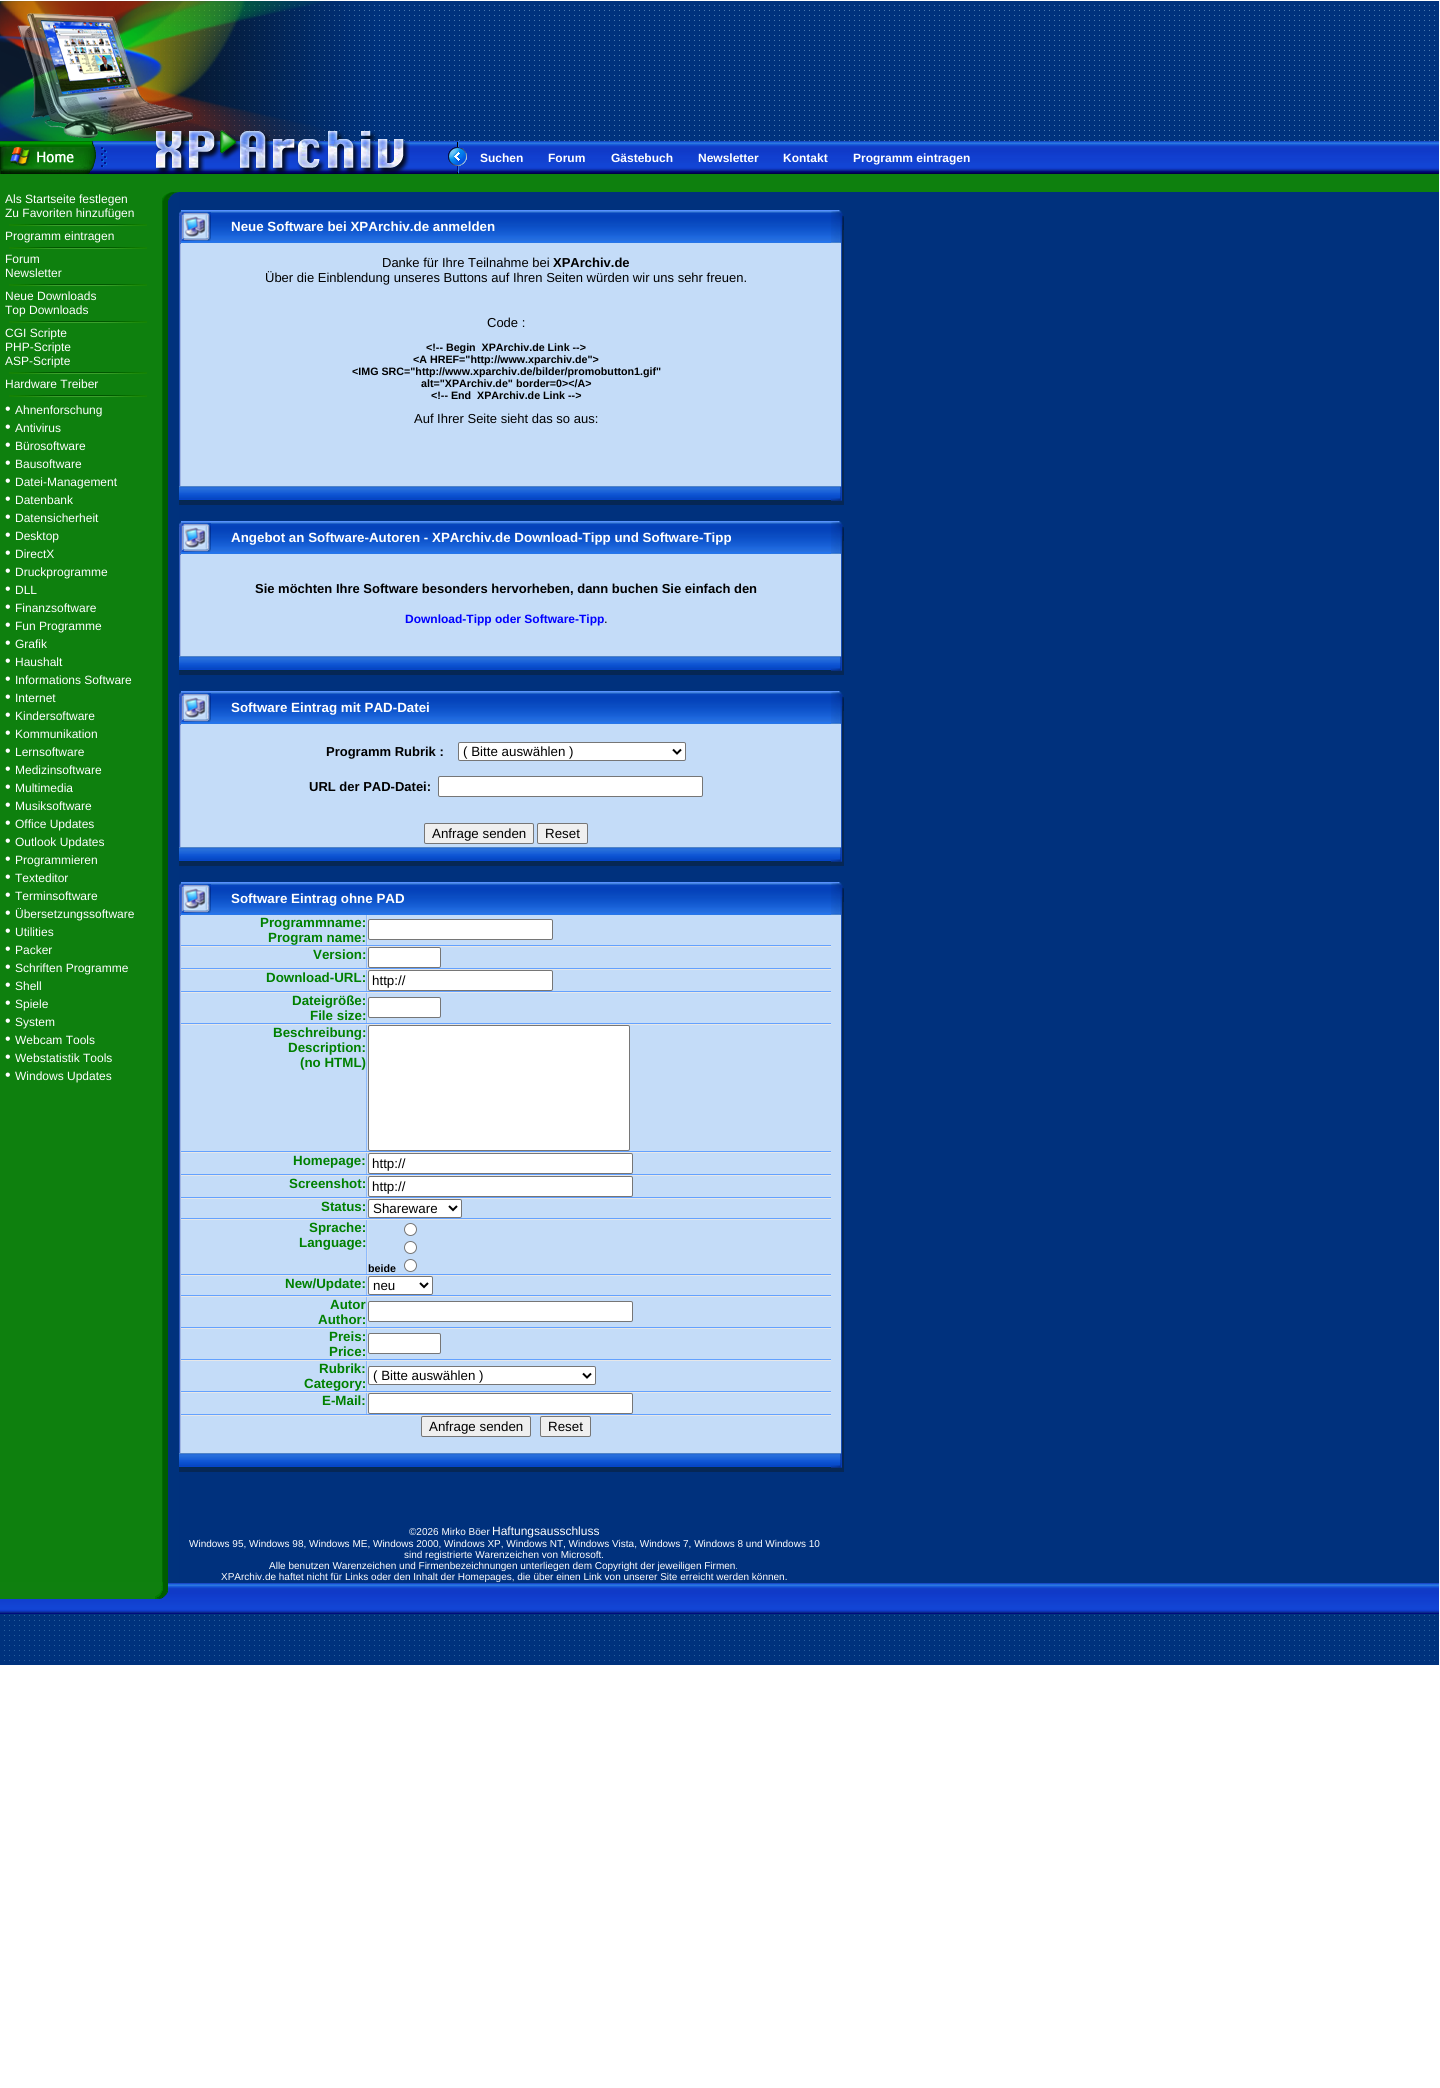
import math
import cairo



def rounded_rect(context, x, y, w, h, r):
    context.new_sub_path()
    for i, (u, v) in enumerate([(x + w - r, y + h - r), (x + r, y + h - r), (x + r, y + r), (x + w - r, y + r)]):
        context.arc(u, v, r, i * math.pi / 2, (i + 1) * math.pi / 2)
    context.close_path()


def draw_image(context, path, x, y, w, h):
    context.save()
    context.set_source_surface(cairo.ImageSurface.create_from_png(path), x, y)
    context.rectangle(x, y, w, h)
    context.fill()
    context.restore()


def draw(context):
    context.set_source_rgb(1, 1, 1)
    context.paint()
    draw_image(context, "images/1.png", 0, 1, 360, 140)
    draw_image(context, "images/2.png", 360, 1, 45, 128)
    draw_image(context, "images/3.png", 405, 1, 1034, 140)
    draw_image(context, "images/4.png", 360, 129, 45, 12)
    draw_image(context, "images/5.png", 0, 141, 109, 33)
    draw_image(context, "images/6.png", 109, 141, 46, 33)
    draw_image(context, "images/7.png", 155, 141, 255, 33)
    draw_image(context, "images/8.png", 410, 141, 60, 33)
    draw_image(context, "images/9.png", 448, 141, 19, 33)
    draw_image(context, "images/10.png", 470, 141, 969, 33)
    context.set_source_rgb(14 / 255, 128 / 255, 14 / 255)
    context.rectangle(0, 174, 1439, 18)
    context.fill()
    context.rectangle(0, 192, 162, 1390)
    context.fill()
    draw_image(context, "images/11.png", 9, 224, 138, 2)
    draw_image(context, "images/11.png", 9, 247, 138, 2)
    draw_image(context, "images/11.png", 9, 284, 138, 2)
    draw_image(context, "images/11.png", 9, 321, 138, 2)
    draw_image(context, "images/11.png", 9, 372, 138, 2)
    draw_image(context, "images/11.png", 9, 395, 138, 2)
    draw_image(context, "images/12.png", 162, 201, 17, 1)
    draw_image(context, "images/13.png", 162, 192, 17, 9)
    context.set_source_rgb(0, 49 / 255, 125 / 255)
    context.rectangle(179, 192, 1260, 1390)
    context.fill()
    draw_image(context, "images/14.png", 179, 211, 2, 32)
    draw_image(context, "images/15.png", 181, 210, 650, 33)
    draw_image(context, "images/16.png", 181, 212, 30, 29)
    draw_image(context, "images/17.png", 831, 210, 13, 33)
    draw_image(context, "images/18.png", 179, 243, 2, 243)
    context.set_source_rgb(196 / 255, 220 / 255, 248 / 255)
    context.rectangle(181, 243, 650, 243)
    context.fill()
    draw_image(context, "images/19.png", 831, 243, 13, 243)
    draw_image(context, "images/20.png", 179, 486, 2, 19)
    draw_image(context, "images/21.png", 181, 486, 650, 19)
    draw_image(context, "images/22.png", 831, 486, 13, 19)
    draw_image(context, "images/14.png", 179, 522, 2, 32)
    draw_image(context, "images/15.png", 181, 521, 650, 33)
    draw_image(context, "images/16.png", 181, 523, 30, 29)
    draw_image(context, "images/17.png", 831, 521, 13, 33)
    draw_image(context, "images/23.png", 179, 554, 2, 102)
    context.rectangle(181, 554, 650, 102)
    context.fill()
    draw_image(context, "images/24.png", 831, 554, 13, 102)
    draw_image(context, "images/20.png", 179, 656, 2, 19)
    draw_image(context, "images/21.png", 181, 656, 650, 19)
    draw_image(context, "images/22.png", 831, 656, 13, 19)
    draw_image(context, "images/14.png", 179, 692, 2, 32)
    draw_image(context, "images/15.png", 181, 691, 650, 33)
    draw_image(context, "images/16.png", 181, 693, 30, 29)
    draw_image(context, "images/17.png", 831, 691, 13, 33)
    draw_image(context, "images/25.png", 179, 724, 2, 123)
    context.rectangle(181, 724, 650, 123)
    context.fill()
    context.set_source_rgb(1, 1, 1)
    rounded_rect(context, 458.5, 742.5, 227, 18, 1.5)
    context.fill_preserve()
    context.set_source_rgb(118 / 255, 118 / 255, 118 / 255)
    context.set_line_width(1)
    context.stroke()
    context.new_path()
    context.move_to(673, 749.5)
    context.line_to(677, 753.5)
    context.line_to(681, 749.5)
    context.set_source_rgb(0, 0, 0)
    context.set_line_width(2)
    context.stroke()
    context.set_source_rgb(1, 1, 1)
    rounded_rect(context, 438.5, 776.5, 264, 20, 1.5)
    context.fill_preserve()
    context.set_source_rgb(118 / 255, 118 / 255, 118 / 255)
    context.set_line_width(1)
    context.stroke()
    context.set_source_rgb(239 / 255, 239 / 255, 239 / 255)
    rounded_rect(context, 424.5, 823.5, 109, 20, 1.5)
    context.fill_preserve()
    context.set_source_rgb(118 / 255, 118 / 255, 118 / 255)
    context.stroke()
    context.set_source_rgb(239 / 255, 239 / 255, 239 / 255)
    rounded_rect(context, 537.5, 823.5, 50, 20, 1.5)
    context.fill_preserve()
    context.set_source_rgb(118 / 255, 118 / 255, 118 / 255)
    context.stroke()
    draw_image(context, "images/26.png", 831, 724, 13, 123)
    draw_image(context, "images/20.png", 179, 847, 2, 19)
    draw_image(context, "images/21.png", 181, 847, 650, 19)
    draw_image(context, "images/22.png", 831, 847, 13, 19)
    draw_image(context, "images/14.png", 179, 883, 2, 32)
    draw_image(context, "images/15.png", 181, 882, 650, 33)
    draw_image(context, "images/16.png", 181, 884, 30, 29)
    draw_image(context, "images/17.png", 831, 882, 13, 33)
    draw_image(context, "images/27.png", 179, 915, 2, 538)
    context.set_source_rgb(196 / 255, 220 / 255, 248 / 255)
    context.rectangle(181, 915, 650, 538)
    context.fill()
    draw_image(context, "images/28.png", 366, 915, 2, 30)
    context.set_source_rgb(1, 1, 1)
    rounded_rect(context, 368.5, 919.5, 184, 20, 1.5)
    context.fill_preserve()
    context.set_source_rgb(118 / 255, 118 / 255, 118 / 255)
    context.stroke()
    draw_image(context, "images/29.png", 181, 945, 650, 2)
    draw_image(context, "images/30.png", 366, 947, 2, 21)
    context.set_source_rgb(1, 1, 1)
    rounded_rect(context, 368.5, 947.5, 72, 20, 1.5)
    context.fill_preserve()
    context.set_source_rgb(118 / 255, 118 / 255, 118 / 255)
    context.stroke()
    draw_image(context, "images/29.png", 181, 968, 650, 2)
    draw_image(context, "images/30.png", 366, 970, 2, 21)
    context.set_source_rgb(1, 1, 1)
    rounded_rect(context, 368.5, 970.5, 184, 20, 1.5)
    context.fill_preserve()
    context.set_source_rgb(118 / 255, 118 / 255, 118 / 255)
    context.stroke()
    draw_image(context, "images/29.png", 181, 991, 650, 2)
    draw_image(context, "images/28.png", 366, 993, 2, 30)
    context.set_source_rgb(1, 1, 1)
    rounded_rect(context, 368.5, 997.5, 72, 20, 1.5)
    context.fill_preserve()
    context.set_source_rgb(118 / 255, 118 / 255, 118 / 255)
    context.stroke()
    draw_image(context, "images/29.png", 181, 1023, 650, 2)
    draw_image(context, "images/31.png", 366, 1025, 2, 126)
    context.set_source_rgb(1, 1, 1)
    rounded_rect(context, 368.5, 1025.5, 261, 125, 1.5)
    context.fill_preserve()
    context.set_source_rgb(118 / 255, 118 / 255, 118 / 255)
    context.stroke()
    draw_image(context, "images/29.png", 181, 1151, 650, 2)
    draw_image(context, "images/30.png", 366, 1153, 2, 21)
    context.set_source_rgb(1, 1, 1)
    rounded_rect(context, 368.5, 1153.5, 264, 20, 1.5)
    context.fill_preserve()
    context.set_source_rgb(118 / 255, 118 / 255, 118 / 255)
    context.stroke()
    draw_image(context, "images/29.png", 181, 1174, 650, 2)
    draw_image(context, "images/30.png", 366, 1176, 2, 21)
    context.set_source_rgb(1, 1, 1)
    rounded_rect(context, 368.5, 1176.5, 264, 20, 1.5)
    context.fill_preserve()
    context.set_source_rgb(118 / 255, 118 / 255, 118 / 255)
    context.stroke()
    draw_image(context, "images/29.png", 181, 1197, 650, 2)
    draw_image(context, "images/32.png", 366, 1199, 2, 19)
    context.set_source_rgb(1, 1, 1)
    rounded_rect(context, 368.5, 1199.5, 93, 18, 1.5)
    context.fill_preserve()
    context.set_source_rgb(118 / 255, 118 / 255, 118 / 255)
    context.stroke()
    context.new_path()
    context.move_to(449, 1206)
    context.line_to(453, 1210)
    context.line_to(457, 1206)
    context.set_source_rgb(0, 0, 0)
    context.set_line_width(2)
    context.stroke()
    draw_image(context, "images/29.png", 181, 1218, 650, 2)
    draw_image(context, "images/33.png", 366, 1220, 2, 54)
    context.set_source_rgb(1, 1, 1)
    context.arc(410.5, 1229.5, 6, 0, 2 * math.pi)
    context.fill_preserve()
    context.set_source_rgb(118 / 255, 118 / 255, 118 / 255)
    context.set_line_width(1)
    context.stroke()
    context.set_source_rgb(1, 1, 1)
    context.arc(410.5, 1247.5, 6, 0, 2 * math.pi)
    context.fill_preserve()
    context.set_source_rgb(118 / 255, 118 / 255, 118 / 255)
    context.stroke()
    context.set_source_rgb(1, 1, 1)
    context.arc(410.5, 1265.5, 6, 0, 2 * math.pi)
    context.fill_preserve()
    context.set_source_rgb(118 / 255, 118 / 255, 118 / 255)
    context.stroke()
    draw_image(context, "images/29.png", 181, 1274, 650, 2)
    draw_image(context, "images/32.png", 366, 1276, 2, 19)
    context.set_source_rgb(1, 1, 1)
    rounded_rect(context, 368.5, 1276.5, 64, 18, 1.5)
    context.fill_preserve()
    context.set_source_rgb(118 / 255, 118 / 255, 118 / 255)
    context.stroke()
    context.new_path()
    context.move_to(420, 1283)
    context.line_to(424, 1287)
    context.line_to(428, 1283)
    context.set_source_rgb(0, 0, 0)
    context.set_line_width(2)
    context.stroke()
    draw_image(context, "images/29.png", 181, 1295, 650, 2)
    draw_image(context, "images/28.png", 366, 1297, 2, 30)
    context.set_source_rgb(1, 1, 1)
    rounded_rect(context, 368.5, 1301.5, 264, 20, 1.5)
    context.fill_preserve()
    context.set_source_rgb(118 / 255, 118 / 255, 118 / 255)
    context.set_line_width(1)
    context.stroke()
    draw_image(context, "images/29.png", 181, 1327, 650, 2)
    draw_image(context, "images/28.png", 366, 1329, 2, 30)
    context.set_source_rgb(1, 1, 1)
    rounded_rect(context, 368.5, 1333.5, 72, 20, 1.5)
    context.fill_preserve()
    context.set_source_rgb(118 / 255, 118 / 255, 118 / 255)
    context.stroke()
    draw_image(context, "images/29.png", 181, 1359, 650, 2)
    draw_image(context, "images/28.png", 366, 1361, 2, 30)
    context.set_source_rgb(1, 1, 1)
    rounded_rect(context, 368.5, 1366.5, 227, 18, 1.5)
    context.fill_preserve()
    context.set_source_rgb(118 / 255, 118 / 255, 118 / 255)
    context.stroke()
    context.new_path()
    context.move_to(583, 1373.5)
    context.line_to(587, 1377.5)
    context.line_to(591, 1373.5)
    context.set_source_rgb(0, 0, 0)
    context.set_line_width(2)
    context.stroke()
    draw_image(context, "images/29.png", 181, 1391, 650, 2)
    draw_image(context, "images/30.png", 366, 1393, 2, 21)
    context.set_source_rgb(1, 1, 1)
    rounded_rect(context, 368.5, 1393.5, 264, 20, 1.5)
    context.fill_preserve()
    context.set_source_rgb(118 / 255, 118 / 255, 118 / 255)
    context.set_line_width(1)
    context.stroke()
    draw_image(context, "images/29.png", 181, 1414, 650, 2)
    context.set_source_rgb(239 / 255, 239 / 255, 239 / 255)
    rounded_rect(context, 421.5, 1416.5, 109, 20, 1.5)
    context.fill_preserve()
    context.set_source_rgb(118 / 255, 118 / 255, 118 / 255)
    context.stroke()
    context.set_source_rgb(239 / 255, 239 / 255, 239 / 255)
    rounded_rect(context, 540.5, 1416.5, 50, 20, 1.5)
    context.fill_preserve()
    context.set_source_rgb(118 / 255, 118 / 255, 118 / 255)
    context.stroke()
    draw_image(context, "images/34.png", 831, 915, 13, 538)
    draw_image(context, "images/20.png", 179, 1453, 2, 19)
    draw_image(context, "images/21.png", 181, 1453, 650, 19)
    draw_image(context, "images/22.png", 831, 1453, 13, 19)
    draw_image(context, "images/35.png", 162, 202, 17, 1380)
    draw_image(context, "images/36.png", 0, 1582, 179, 32)
    draw_image(context, "images/37.png", 179, 1582, 1260, 32)
    draw_image(context, "images/38.png", 0, 1614, 1439, 51)
    context.select_font_face("Liberation Sans", cairo.FontSlant.NORMAL, cairo.FontWeight.BOLD)
    context.set_font_size(12)
    context.set_source_rgb(1, 1, 1)
    context.move_to(480, 162)
    context.show_text("Suchen")
    context.move_to(548, 162)
    context.show_text("Forum")
    context.move_to(611, 162)
    context.show_text("Gästebuch")
    context.move_to(698, 162)
    context.show_text("Newsletter")
    context.move_to(783, 162)
    context.show_text("Kontakt")
    context.move_to(853, 162)
    context.show_text("Programm eintragen")
    context.select_font_face("Liberation Sans")
    context.move_to(5, 203)
    context.show_text("Als Startseite festlegen")
    context.move_to(5, 217)
    context.show_text("Zu Favoriten hinzufügen")
    context.move_to(5, 240)
    context.show_text("Programm eintragen")
    context.move_to(5, 263)
    context.show_text("Forum")
    context.move_to(5, 277)
    context.show_text("Newsletter")
    context.move_to(5, 300)
    context.show_text("Neue Downloads")
    context.move_to(5, 314)
    context.show_text("Top Downloads")
    context.move_to(5, 337)
    context.show_text("CGI Scripte")
    context.move_to(5, 351)
    context.show_text("PHP-Scripte")
    context.move_to(5, 365)
    context.show_text("ASP-Scripte")
    context.move_to(5, 388)
    context.show_text("Hardware Treiber")
    context.set_font_size(16)
    context.move_to(5, 414)
    context.show_text("•")
    context.set_font_size(12)
    context.move_to(15, 414)
    context.show_text("Ahnenforschung")
    context.set_font_size(16)
    context.move_to(5, 432)
    context.show_text("•")
    context.set_font_size(12)
    context.move_to(15, 432)
    context.show_text("Antivirus")
    context.set_font_size(16)
    context.move_to(5, 450)
    context.show_text("•")
    context.set_font_size(12)
    context.move_to(15, 450)
    context.show_text("Bürosoftware")
    context.set_font_size(16)
    context.move_to(5, 468)
    context.show_text("•")
    context.set_font_size(12)
    context.move_to(15, 468)
    context.show_text("Bausoftware")
    context.set_font_size(16)
    context.move_to(5, 486)
    context.show_text("•")
    context.set_font_size(12)
    context.move_to(15, 486)
    context.show_text("Datei-Management")
    context.set_font_size(16)
    context.move_to(5, 504)
    context.show_text("•")
    context.set_font_size(12)
    context.move_to(15, 504)
    context.show_text("Datenbank")
    context.set_font_size(16)
    context.move_to(5, 522)
    context.show_text("•")
    context.set_font_size(12)
    context.move_to(15, 522)
    context.show_text("Datensicherheit")
    context.set_font_size(16)
    context.move_to(5, 540)
    context.show_text("•")
    context.set_font_size(12)
    context.move_to(15, 540)
    context.show_text("Desktop")
    context.set_font_size(16)
    context.move_to(5, 558)
    context.show_text("•")
    context.set_font_size(12)
    context.move_to(15, 558)
    context.show_text("DirectX")
    context.set_font_size(16)
    context.move_to(5, 576)
    context.show_text("•")
    context.set_font_size(12)
    context.move_to(15, 576)
    context.show_text("Druckprogramme")
    context.set_font_size(16)
    context.move_to(5, 594)
    context.show_text("•")
    context.set_font_size(12)
    context.move_to(15, 594)
    context.show_text("DLL")
    context.set_font_size(16)
    context.move_to(5, 612)
    context.show_text("•")
    context.set_font_size(12)
    context.move_to(15, 612)
    context.show_text("Finanzsoftware")
    context.set_font_size(16)
    context.move_to(5, 630)
    context.show_text("•")
    context.set_font_size(12)
    context.move_to(15, 630)
    context.show_text("Fun Programme")
    context.set_font_size(16)
    context.move_to(5, 648)
    context.show_text("•")
    context.set_font_size(12)
    context.move_to(15, 648)
    context.show_text("Grafik")
    context.set_font_size(16)
    context.move_to(5, 666)
    context.show_text("•")
    context.set_font_size(12)
    context.move_to(15, 666)
    context.show_text("Haushalt")
    context.set_font_size(16)
    context.move_to(5, 684)
    context.show_text("•")
    context.set_font_size(12)
    context.move_to(15, 684)
    context.show_text("Informations Software")
    context.set_font_size(16)
    context.move_to(5, 702)
    context.show_text("•")
    context.set_font_size(12)
    context.move_to(15, 702)
    context.show_text("Internet")
    context.set_font_size(16)
    context.move_to(5, 720)
    context.show_text("•")
    context.set_font_size(12)
    context.move_to(15, 720)
    context.show_text("Kindersoftware")
    context.set_font_size(16)
    context.move_to(5, 738)
    context.show_text("•")
    context.set_font_size(12)
    context.move_to(15, 738)
    context.show_text("Kommunikation")
    context.set_font_size(16)
    context.move_to(5, 756)
    context.show_text("•")
    context.set_font_size(12)
    context.move_to(15, 756)
    context.show_text("Lernsoftware")
    context.set_font_size(16)
    context.move_to(5, 774)
    context.show_text("•")
    context.set_font_size(12)
    context.move_to(15, 774)
    context.show_text("Medizinsoftware")
    context.set_font_size(16)
    context.move_to(5, 792)
    context.show_text("•")
    context.set_font_size(12)
    context.move_to(15, 792)
    context.show_text("Multimedia")
    context.set_font_size(16)
    context.move_to(5, 810)
    context.show_text("•")
    context.set_font_size(12)
    context.move_to(15, 810)
    context.show_text("Musiksoftware")
    context.set_font_size(16)
    context.move_to(5, 828)
    context.show_text("•")
    context.set_font_size(12)
    context.move_to(15, 828)
    context.show_text("Office Updates")
    context.set_font_size(16)
    context.move_to(5, 846)
    context.show_text("•")
    context.set_font_size(12)
    context.move_to(15, 846)
    context.show_text("Outlook Updates")
    context.set_font_size(16)
    context.move_to(5, 864)
    context.show_text("•")
    context.set_font_size(12)
    context.move_to(15, 864)
    context.show_text("Programmieren")
    context.set_font_size(16)
    context.move_to(5, 882)
    context.show_text("•")
    context.set_font_size(12)
    context.move_to(15, 882)
    context.show_text("Texteditor")
    context.set_font_size(16)
    context.move_to(5, 900)
    context.show_text("•")
    context.set_font_size(12)
    context.move_to(15, 900)
    context.show_text("Terminsoftware")
    context.set_font_size(16)
    context.move_to(5, 918)
    context.show_text("•")
    context.set_font_size(12)
    context.move_to(15, 918)
    context.show_text("Übersetzungssoftware")
    context.set_font_size(16)
    context.move_to(5, 936)
    context.show_text("•")
    context.set_font_size(12)
    context.move_to(15, 936)
    context.show_text("Utilities")
    context.set_font_size(16)
    context.move_to(5, 954)
    context.show_text("•")
    context.set_font_size(12)
    context.move_to(15, 954)
    context.show_text("Packer")
    context.set_font_size(16)
    context.move_to(5, 972)
    context.show_text("•")
    context.set_font_size(12)
    context.move_to(15, 972)
    context.show_text("Schriften Programme")
    context.set_font_size(16)
    context.move_to(5, 990)
    context.show_text("•")
    context.set_font_size(12)
    context.move_to(15, 990)
    context.show_text("Shell")
    context.set_font_size(16)
    context.move_to(5, 1008)
    context.show_text("•")
    context.set_font_size(12)
    context.move_to(15, 1008)
    context.show_text("Spiele")
    context.set_font_size(16)
    context.move_to(5, 1026)
    context.show_text("•")
    context.set_font_size(12)
    context.move_to(15, 1026)
    context.show_text("System")
    context.set_font_size(16)
    context.move_to(5, 1044)
    context.show_text("•")
    context.set_font_size(12)
    context.move_to(15, 1044)
    context.show_text("Webcam Tools")
    context.set_font_size(16)
    context.move_to(5, 1062)
    context.show_text("•")
    context.set_font_size(12)
    context.move_to(15, 1062)
    context.show_text("Webstatistik Tools")
    context.set_font_size(16)
    context.move_to(5, 1080)
    context.show_text("•")
    context.set_font_size(12)
    context.move_to(15, 1080)
    context.show_text("Windows Updates")
    context.select_font_face("Liberation Sans", cairo.FontSlant.NORMAL, cairo.FontWeight.BOLD)
    context.set_font_size(13.35)
    context.move_to(231, 231)
    context.show_text("Neue Software bei XPArchiv.de anmelden")
    context.select_font_face("Liberation Sans")
    context.set_font_size(13)
    context.set_source_rgb(0, 0, 0)
    context.move_to(382, 267)
    context.show_text("Danke für Ihre Teilnahme bei")
    context.select_font_face("Liberation Sans", cairo.FontSlant.NORMAL, cairo.FontWeight.BOLD)
    context.move_to(553, 267)
    context.show_text("XPArchiv.de")
    context.select_font_face("Liberation Sans")
    context.move_to(265, 282)
    context.show_text("Über die Einblendung unseres Buttons auf Ihren Seiten würden wir uns sehr freuen.")
    context.move_to(487, 327)
    context.show_text("Code :")
    context.select_font_face("Liberation Sans", cairo.FontSlant.NORMAL, cairo.FontWeight.BOLD)
    context.set_font_size(10.7)
    context.move_to(426, 351)
    context.show_text("<!-- Begin  XPArchiv.de Link -->")
    context.move_to(413, 363)
    context.show_text("<A HREF=\"http://www.xparchiv.de\">")
    context.move_to(352, 375)
    context.show_text("<IMG SRC=\"http://www.xparchiv.de/bilder/promobutton1.gif\"")
    context.move_to(421, 387)
    context.show_text("alt=\"XPArchiv.de\" border=0></A>")
    context.move_to(431, 399)
    context.show_text("<!-- End  XPArchiv.de Link -->")
    context.select_font_face("Liberation Sans")
    context.set_font_size(13)
    context.move_to(414, 423)
    context.show_text("Auf Ihrer Seite sieht das so aus:")
    context.select_font_face("Liberation Sans", cairo.FontSlant.NORMAL, cairo.FontWeight.BOLD)
    context.set_font_size(13.35)
    context.set_source_rgb(1, 1, 1)
    context.move_to(231, 542)
    context.show_text("Angebot an Software-Autoren - XPArchiv.de Download-Tipp und Software-Tipp")
    context.set_font_size(13)
    context.set_source_rgb(0, 0, 0)
    context.move_to(255, 593)
    context.show_text("Sie möchten Ihre Software besonders hervorheben, dann buchen Sie einfach den")
    context.set_font_size(12)
    context.set_source_rgb(0, 0, 1)
    context.move_to(405, 623)
    context.show_text("Download-Tipp oder Software-Tipp")
    context.select_font_face("Liberation Sans")
    context.set_font_size(13)
    context.set_source_rgb(0, 0, 0)
    context.move_to(604, 623)
    context.show_text(".")
    context.select_font_face("Liberation Sans", cairo.FontSlant.NORMAL, cairo.FontWeight.BOLD)
    context.set_font_size(13.35)
    context.set_source_rgb(1, 1, 1)
    context.move_to(231, 712)
    context.show_text("Software Eintrag mit PAD-Datei")
    context.set_font_size(13)
    context.set_source_rgb(0, 0, 0)
    context.move_to(326, 756)
    context.show_text("Programm Rubrik :")
    context.select_font_face("Liberation Sans")
    context.set_font_size(13.35)
    context.move_to(463, 756)
    context.show_text("( Bitte auswählen )")
    context.select_font_face("Liberation Sans", cairo.FontSlant.NORMAL, cairo.FontWeight.BOLD)
    context.set_font_size(13)
    context.move_to(309, 791)
    context.show_text("URL der PAD-Datei:")
    context.select_font_face("Liberation Sans")
    context.set_font_size(13.35)
    context.move_to(432, 838)
    context.show_text("Anfrage senden")
    context.move_to(545, 838)
    context.show_text("Reset")
    context.select_font_face("Liberation Sans", cairo.FontSlant.NORMAL, cairo.FontWeight.BOLD)
    context.set_source_rgb(1, 1, 1)
    context.move_to(231, 903)
    context.show_text("Software Eintrag ohne PAD")
    context.set_source_rgb(0, 128 / 255, 0)
    context.move_to(260, 927)
    context.show_text("Programmname:")
    context.move_to(268, 942)
    context.show_text("Program name:")
    context.move_to(313, 959)
    context.show_text("Version:")
    context.move_to(266, 982)
    context.show_text("Download-URL:")
    context.select_font_face("Liberation Sans")
    context.set_source_rgb(0, 0, 0)
    context.move_to(372, 985)
    context.show_text("http://")
    context.select_font_face("Liberation Sans", cairo.FontSlant.NORMAL, cairo.FontWeight.BOLD)
    context.set_source_rgb(0, 128 / 255, 0)
    context.move_to(292, 1005)
    context.show_text("Dateigröße:")
    context.move_to(310, 1020)
    context.show_text("File size:")
    context.move_to(273, 1037)
    context.show_text("Beschreibung:")
    context.move_to(288, 1052)
    context.show_text("Description:")
    context.move_to(300, 1067)
    context.show_text("(no HTML)")
    context.move_to(293, 1165)
    context.show_text("Homepage:")
    context.select_font_face("Liberation Sans")
    context.set_source_rgb(0, 0, 0)
    context.move_to(372, 1168)
    context.show_text("http://")
    context.select_font_face("Liberation Sans", cairo.FontSlant.NORMAL, cairo.FontWeight.BOLD)
    context.set_source_rgb(0, 128 / 255, 0)
    context.move_to(289, 1188)
    context.show_text("Screenshot:")
    context.select_font_face("Liberation Sans")
    context.set_source_rgb(0, 0, 0)
    context.move_to(372, 1191)
    context.show_text("http://")
    context.select_font_face("Liberation Sans", cairo.FontSlant.NORMAL, cairo.FontWeight.BOLD)
    context.set_source_rgb(0, 128 / 255, 0)
    context.move_to(321, 1211)
    context.show_text("Status:")
    context.select_font_face("Liberation Sans")
    context.set_source_rgb(0, 0, 0)
    context.move_to(373, 1213)
    context.show_text("Shareware")
    context.select_font_face("Liberation Sans", cairo.FontSlant.NORMAL, cairo.FontWeight.BOLD)
    context.set_source_rgb(0, 128 / 255, 0)
    context.move_to(309, 1232)
    context.show_text("Sprache:")
    context.move_to(299, 1247)
    context.show_text("Language:")
    context.set_font_size(10.7)
    context.set_source_rgb(0, 0, 0)
    context.move_to(368, 1272)
    context.show_text("beide")
    context.set_font_size(13.35)
    context.set_source_rgb(0, 128 / 255, 0)
    context.move_to(285, 1288)
    context.show_text("New/Update:")
    context.select_font_face("Liberation Sans")
    context.set_source_rgb(0, 0, 0)
    context.move_to(373, 1290)
    context.show_text("neu")
    context.select_font_face("Liberation Sans", cairo.FontSlant.NORMAL, cairo.FontWeight.BOLD)
    context.set_source_rgb(0, 128 / 255, 0)
    context.move_to(330, 1309)
    context.show_text("Autor")
    context.move_to(318, 1324)
    context.show_text("Author:")
    context.move_to(329, 1341)
    context.show_text("Preis:")
    context.move_to(329, 1356)
    context.show_text("Price:")
    context.move_to(319, 1373)
    context.show_text("Rubrik:")
    context.move_to(304, 1388)
    context.show_text("Category:")
    context.select_font_face("Liberation Sans")
    context.set_source_rgb(0, 0, 0)
    context.move_to(373, 1380)
    context.show_text("( Bitte auswählen )")
    context.select_font_face("Liberation Sans", cairo.FontSlant.NORMAL, cairo.FontWeight.BOLD)
    context.set_source_rgb(0, 128 / 255, 0)
    context.move_to(322, 1405)
    context.show_text("E-Mail:")
    context.select_font_face("Liberation Sans")
    context.set_source_rgb(0, 0, 0)
    context.move_to(429, 1431)
    context.show_text("Anfrage senden")
    context.move_to(548, 1431)
    context.show_text("Reset")
    context.set_font_size(10)
    context.set_source_rgb(1, 1, 1)
    context.move_to(409, 1535)
    context.show_text("©2026 Mirko Böer")
    context.set_font_size(12)
    context.move_to(492, 1535)
    context.show_text("Haftungsausschluss")
    context.set_font_size(10)
    context.move_to(189, 1547)
    context.show_text("Windows 95, Windows 98, Windows ME, Windows 2000, Windows XP, Windows NT, Windows Vista, Windows 7, Windows 8 und Windows 10")
    context.move_to(404, 1558)
    context.show_text("sind registrierte Warenzeichen von Microsoft.")
    context.move_to(269, 1569)
    context.show_text("Alle benutzen Warenzeichen und Firmenbezeichnungen unterliegen dem Copyright der jeweiligen Firmen.")
    context.move_to(221, 1580)
    context.show_text("XPArchiv.de haftet nicht für Links oder den Inhalt der Homepages, die über einen Link von unserer Site erreicht werden können.")


surface = cairo.ImageSurface(cairo.Format.RGB24, 1440, 2088)
context = cairo.Context(surface)
options = cairo.FontOptions()
options.set_hint_metrics(cairo.HintMetrics.OFF)
options.set_hint_style(cairo.HintStyle.NONE)
context.set_font_options(options)
context.set_miter_limit(4)
draw(context)
surface.write_to_png("out.png")
